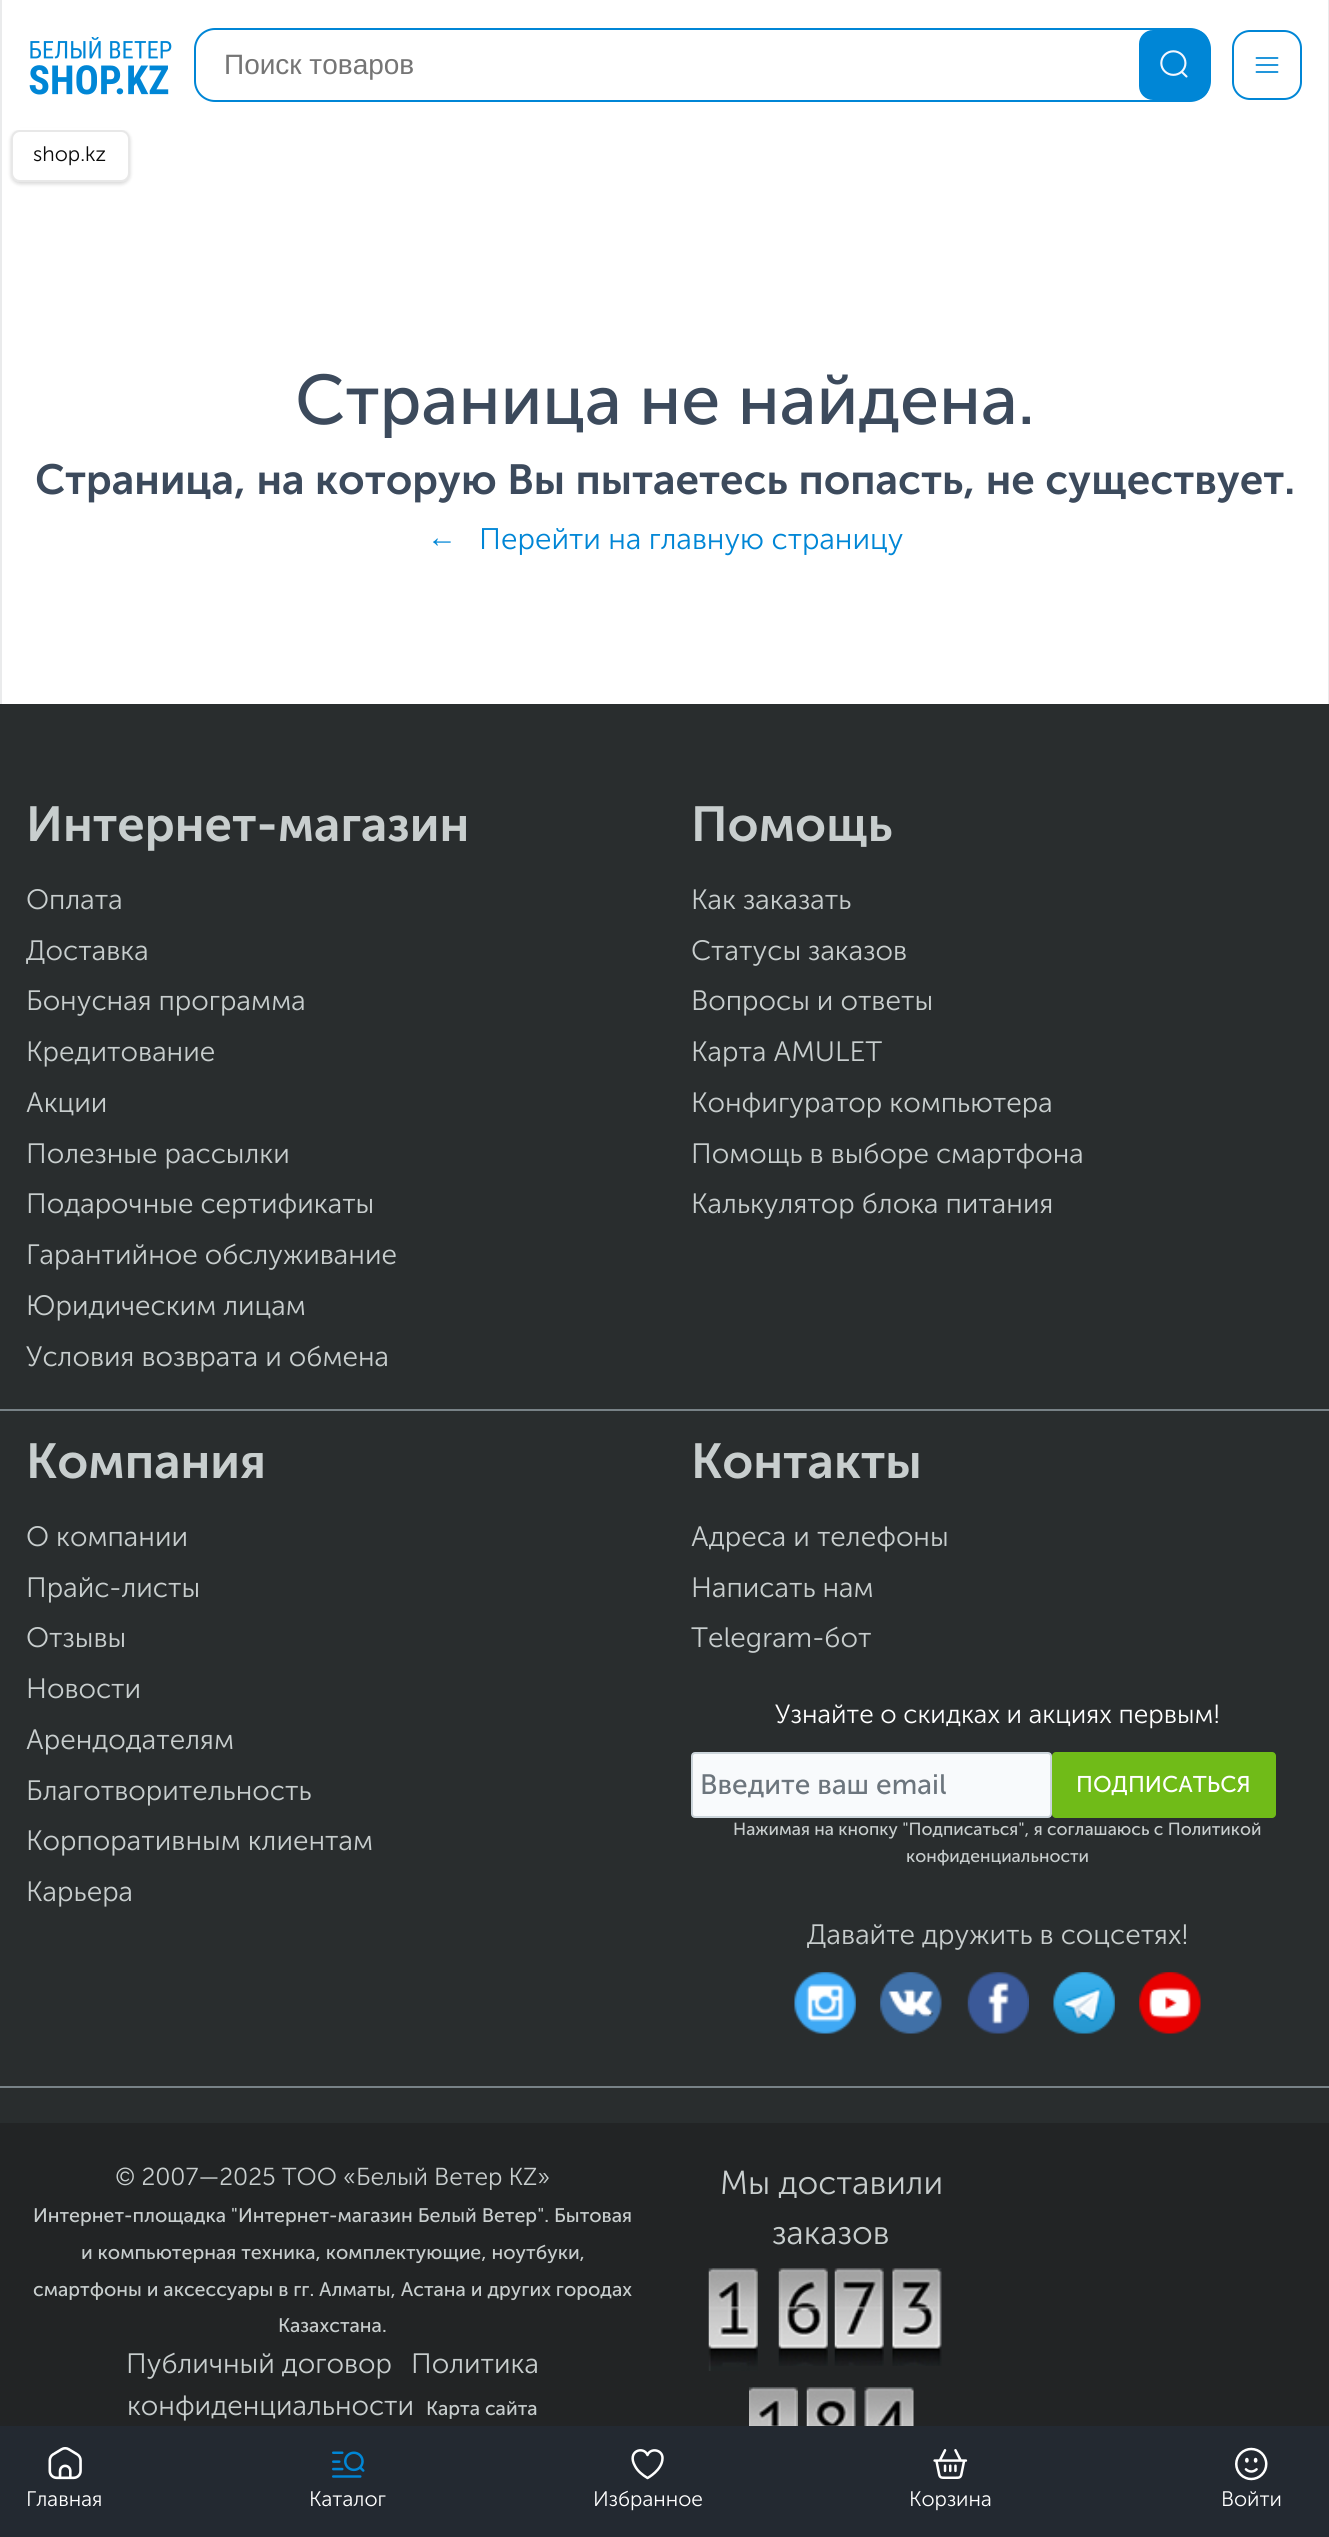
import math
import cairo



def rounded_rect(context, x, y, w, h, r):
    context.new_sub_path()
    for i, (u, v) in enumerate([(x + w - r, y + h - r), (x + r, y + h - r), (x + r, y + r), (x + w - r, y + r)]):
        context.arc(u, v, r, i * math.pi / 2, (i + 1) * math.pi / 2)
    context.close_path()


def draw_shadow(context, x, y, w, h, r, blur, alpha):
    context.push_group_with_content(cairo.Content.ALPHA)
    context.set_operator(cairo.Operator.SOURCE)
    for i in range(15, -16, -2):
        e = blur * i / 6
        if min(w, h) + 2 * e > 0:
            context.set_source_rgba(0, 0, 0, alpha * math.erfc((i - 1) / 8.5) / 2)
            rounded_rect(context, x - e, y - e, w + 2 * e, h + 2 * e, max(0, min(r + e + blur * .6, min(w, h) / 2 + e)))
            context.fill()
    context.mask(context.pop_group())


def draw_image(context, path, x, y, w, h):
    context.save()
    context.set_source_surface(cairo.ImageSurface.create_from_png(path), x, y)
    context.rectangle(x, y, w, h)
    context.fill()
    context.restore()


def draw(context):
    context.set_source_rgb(1, 1, 1)
    context.paint()
    context.set_source_rgb(0, 0, 0)
    draw_shadow(context, 11, 131, 119, 53, 9, 2, 0.16)
    context.set_source_rgb(1, 1, 1)
    context.rectangle(14, 128, 113, 2)
    context.fill()
    draw_image(context, "images/1.png", 29, 37, 143, 58)
    rounded_rect(context, 195, 29, 1015, 72, 20)
    context.set_source_rgb(0, 134 / 255, 214 / 255)
    context.stroke()
    rounded_rect(context, 1139, 30, 70, 70, 14)
    context.fill()
    draw_image(context, "images/2.png", 1160, 50, 28, 28)
    rounded_rect(context, 1233, 31, 68, 68, 17)
    context.stroke()
    context.new_path()
    context.move_to(1256.5, 58)
    context.line_to(1277.5, 58)
    context.move_to(1256.5, 65)
    context.line_to(1277.5, 65)
    context.move_to(1256.5, 72)
    context.line_to(1277.5, 72)
    context.set_line_width(1.8)
    context.set_line_cap(cairo.LineCap.ROUND)
    context.set_line_join(cairo.LineJoin.ROUND)
    context.stroke()
    context.set_source_rgb(234 / 255, 235 / 255, 236 / 255)
    context.rectangle(1328, 0, 1, 704)
    context.fill()
    context.rectangle(0, 0, 2, 704)
    context.fill()
    context.set_source_rgb(1, 1, 1)
    rounded_rect(context, 11, 130, 119, 52, 9)
    context.fill()
    rounded_rect(context, 12, 131, 117, 50, 8)
    context.set_source_rgba(166 / 255, 166 / 255, 166 / 255, 0.25)
    context.set_line_width(2)
    context.set_line_cap(cairo.LineCap.BUTT)
    context.set_line_join(cairo.LineJoin.MITER)
    context.stroke()
    context.set_source_rgb(41 / 255, 45 / 255, 46 / 255)
    context.rectangle(0, 704, 1329, 1419)
    context.fill()
    context.set_source_rgb(120 / 255, 130 / 255, 135 / 255)
    context.rectangle(0, 1409, 1329, 2)
    context.fill()
    context.rectangle(0, 2086, 1329, 2)
    context.fill()
    context.set_source_rgb(248 / 255, 250 / 255, 252 / 255)
    rounded_rect(context, 692, 1753, 359, 64, 3)
    context.fill_preserve()
    context.set_source_rgb(204 / 255, 213 / 255, 219 / 255)
    context.stroke()
    context.set_source_rgb(112 / 255, 187 / 255, 24 / 255)
    rounded_rect(context, 1052, 1752, 224, 66, 4)
    context.fill()
    draw_image(context, "images/3.png", 794, 1972, 62, 62)
    draw_image(context, "images/4.png", 880, 1972, 62, 62)
    draw_image(context, "images/5.png", 967, 1972, 62, 62)
    draw_image(context, "images/6.png", 1053, 1972, 62, 62)
    draw_image(context, "images/7.png", 1139, 1972, 62, 62)
    context.set_source_rgb(34 / 255, 36 / 255, 37 / 255)
    context.rectangle(0, 2123, 1329, 303)
    context.fill()
    draw_image(context, "images/8.png", 708, 2268, 50, 103)
    draw_image(context, "images/9.png", 778, 2268, 50, 98)
    draw_image(context, "images/10.png", 834, 2268, 50, 98)
    draw_image(context, "images/11.png", 892, 2268, 50, 98)
    draw_image(context, "images/12.png", 749, 2387, 49, 39)
    draw_image(context, "images/13.png", 806, 2387, 50, 39)
    draw_image(context, "images/14.png", 864, 2387, 50, 39)
    context.set_source_rgb(35 / 255, 41 / 255, 49 / 255)
    context.rectangle(0, 2426, 1329, 111)
    context.fill()
    draw_image(context, "images/15.png", 48, 2447, 34, 33)
    draw_image(context, "images/16.png", 332, 2451, 33, 27)
    context.new_path()
    context.move_to(662.5, 2458)
    context.curve_to(662.5, 2449.5, 650.5, 2447.5, 647.5, 2455)
    context.curve_to(643.5, 2445.5, 626.5, 2451, 635, 2466)
    context.curve_to(637.5, 2471, 642.5, 2475, 647.5, 2478)
    context.curve_to(647.5, 2478, 662.5, 2470, 662.5, 2458)
    context.close_path()
    context.set_source_rgb(1, 1, 1)
    context.set_line_width(2.5)
    context.set_line_cap(cairo.LineCap.ROUND)
    context.set_line_join(cairo.LineJoin.ROUND)
    context.stroke()
    draw_image(context, "images/17.png", 933, 2449, 35, 30)
    draw_image(context, "images/18.png", 1235, 2447, 33, 34)
    context.select_font_face("Liberation Sans")
    context.set_font_size(28)
    context.set_source_rgb(117 / 255, 117 / 255, 117 / 255)
    context.move_to(224, 74)
    context.show_text("Поиск товаров")
    context.select_font_face("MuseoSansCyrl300")
    context.set_font_size(21)
    context.set_source_rgb(10 / 255, 10 / 255, 10 / 255)
    context.move_to(33, 161)
    context.show_text("shop.kz")
    context.select_font_face("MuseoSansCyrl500")
    context.set_font_size(70)
    context.set_source_rgb(60 / 255, 74 / 255, 92 / 255)
    context.move_to(295, 424)
    context.show_text("Страница не найдена.")
    context.select_font_face("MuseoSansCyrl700", cairo.FontSlant.NORMAL, cairo.FontWeight.BOLD)
    context.set_font_size(42)
    context.move_to(35, 494)
    context.show_text("Страница, на которую Вы пытаетесь попасть, не существует.")
    context.select_font_face("Liberation Sans")
    context.set_font_size(29.75)
    context.set_source_rgb(0, 134 / 255, 214 / 255)
    context.move_to(427, 547)
    context.show_text("←")
    context.select_font_face("MuseoSansCyrl300")
    context.move_to(479, 549)
    context.show_text("Перейти на главную страницу")
    context.select_font_face("MuseoSansCyrl700", cairo.FontSlant.NORMAL, cairo.FontWeight.BOLD)
    context.set_font_size(49)
    context.set_source_rgb(200 / 255, 206 / 255, 206 / 255)
    context.move_to(26, 841)
    context.show_text("Интернет-магазин")
    context.select_font_face("MuseoSansCyrl300")
    context.set_font_size(28)
    context.move_to(26, 909)
    context.show_text("Оплата")
    context.move_to(26, 960)
    context.show_text("Доставка")
    context.move_to(26, 1010)
    context.show_text("Бонусная программа")
    context.move_to(26, 1061)
    context.show_text("Кредитование")
    context.move_to(26, 1112)
    context.show_text("Акции")
    context.move_to(26, 1163)
    context.show_text("Полезные рассылки")
    context.move_to(26, 1213)
    context.show_text("Подарочные сертификаты")
    context.move_to(26, 1264)
    context.show_text("Гарантийное обслуживание")
    context.move_to(26, 1315)
    context.show_text("Юридическим лицам")
    context.move_to(26, 1366)
    context.show_text("Условия возврата и обмена")
    context.select_font_face("MuseoSansCyrl700", cairo.FontSlant.NORMAL, cairo.FontWeight.BOLD)
    context.set_font_size(49)
    context.move_to(691, 841)
    context.show_text("Помощь")
    context.select_font_face("MuseoSansCyrl300")
    context.set_font_size(28)
    context.move_to(691, 909)
    context.show_text("Как заказать")
    context.move_to(691, 960)
    context.show_text("Статусы заказов")
    context.move_to(691, 1010)
    context.show_text("Вопросы и ответы")
    context.move_to(691, 1061)
    context.show_text("Карта AMULET")
    context.move_to(691, 1112)
    context.show_text("Конфигуратор компьютера")
    context.move_to(691, 1163)
    context.show_text("Помощь в выборе смартфона")
    context.move_to(691, 1213)
    context.show_text("Калькулятор блока питания")
    context.select_font_face("MuseoSansCyrl700", cairo.FontSlant.NORMAL, cairo.FontWeight.BOLD)
    context.set_font_size(49)
    context.move_to(26, 1478)
    context.show_text("Компания")
    context.select_font_face("MuseoSansCyrl300")
    context.set_font_size(28)
    context.move_to(26, 1546)
    context.show_text("О компании")
    context.move_to(26, 1597)
    context.show_text("Прайс-листы")
    context.move_to(26, 1647)
    context.show_text("Отзывы")
    context.move_to(26, 1698)
    context.show_text("Новости")
    context.move_to(26, 1749)
    context.show_text("Арендодателям")
    context.move_to(26, 1800)
    context.show_text("Благотворительность")
    context.move_to(26, 1850)
    context.show_text("Корпоративным клиентам")
    context.move_to(26, 1901)
    context.show_text("Карьера")
    context.select_font_face("MuseoSansCyrl700", cairo.FontSlant.NORMAL, cairo.FontWeight.BOLD)
    context.set_font_size(49)
    context.move_to(691, 1478)
    context.show_text("Контакты")
    context.select_font_face("MuseoSansCyrl300")
    context.set_font_size(28)
    context.move_to(691, 1546)
    context.show_text("Адреса и телефоны")
    context.move_to(691, 1597)
    context.show_text("Написать нам")
    context.move_to(691, 1647)
    context.show_text("Telegram-бот")
    context.select_font_face("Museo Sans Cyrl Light")
    context.set_font_size(26.25)
    context.set_source_rgb(1, 1, 1)
    context.move_to(775, 1723)
    context.show_text("Узнайте о скидках и акциях первым!")
    context.select_font_face("MuseoSansCyrl500")
    context.set_font_size(28)
    context.set_source_rgb(108 / 255, 117 / 255, 125 / 255)
    context.move_to(700, 1794)
    context.show_text("Введите ваш email")
    context.set_font_size(22.75)
    context.set_source_rgb(1, 1, 1)
    context.move_to(1076, 1792)
    context.show_text("ПОДПИСАТЬСЯ")
    context.set_font_size(17.5)
    context.set_source_rgb(200 / 255, 206 / 255, 206 / 255)
    context.move_to(733, 1835)
    context.show_text("Нажимая на кнопку \"Подписаться\", я соглашаюсь с Политикой")
    context.move_to(906, 1862)
    context.show_text("конфиденциальности")
    context.select_font_face("Museo Sans Cyrl Light")
    context.set_font_size(28)
    context.move_to(807, 1944)
    context.show_text("Давайте дружить в соцсетях!")
    context.select_font_face("MuseoSansCyrl300")
    context.set_font_size(24.5)
    context.move_to(115, 2185)
    context.show_text("© 2007—2025 ТОО «Белый Ветер KZ»")
    context.select_font_face("MuseoSansCyrl500")
    context.set_font_size(19.6)
    context.move_to(33, 2222)
    context.show_text("Интернет-площадка \"Интернет-магазин Белый Ветер\". Бытовая")
    context.move_to(81, 2259)
    context.show_text("и компьютерная техника, комплектующие, ноутбуки,")
    context.move_to(33, 2296)
    context.show_text("смартфоны и аксессуары в гг. Алматы, Астана и других городах")
    context.move_to(278, 2332)
    context.show_text("Казахстана.")
    context.select_font_face("MuseoSansCyrl300")
    context.set_font_size(28)
    context.move_to(126, 2373)
    context.show_text("Публичный договор")
    context.move_to(411, 2373)
    context.show_text("Политика")
    context.move_to(127, 2415)
    context.show_text("конфиденциальности")
    context.select_font_face("MuseoSansCyrl500")
    context.set_font_size(19.6)
    context.move_to(426, 2415)
    context.show_text("Карта сайта")
    context.select_font_face("MuseoSansCyrl300")
    context.set_font_size(33.25)
    context.move_to(720, 2194)
    context.show_text("Мы доставили")
    context.move_to(772, 2244)
    context.show_text("заказов")
    context.set_font_size(21)
    context.set_source_rgb(1, 1, 1)
    context.move_to(26, 2506)
    context.show_text("Главная")
    context.move_to(309, 2506)
    context.show_text("Каталог")
    context.move_to(593, 2506)
    context.show_text("Избранное")
    context.move_to(909, 2506)
    context.show_text("Корзина")
    context.move_to(1221, 2506)
    context.show_text("Войти")


surface = cairo.ImageSurface(cairo.Format.RGB24, 1329, 2537)
context = cairo.Context(surface)
options = cairo.FontOptions()
options.set_hint_metrics(cairo.HintMetrics.OFF)
options.set_hint_style(cairo.HintStyle.NONE)
context.set_font_options(options)
context.set_miter_limit(4)
draw(context)
surface.write_to_png("out.png")
